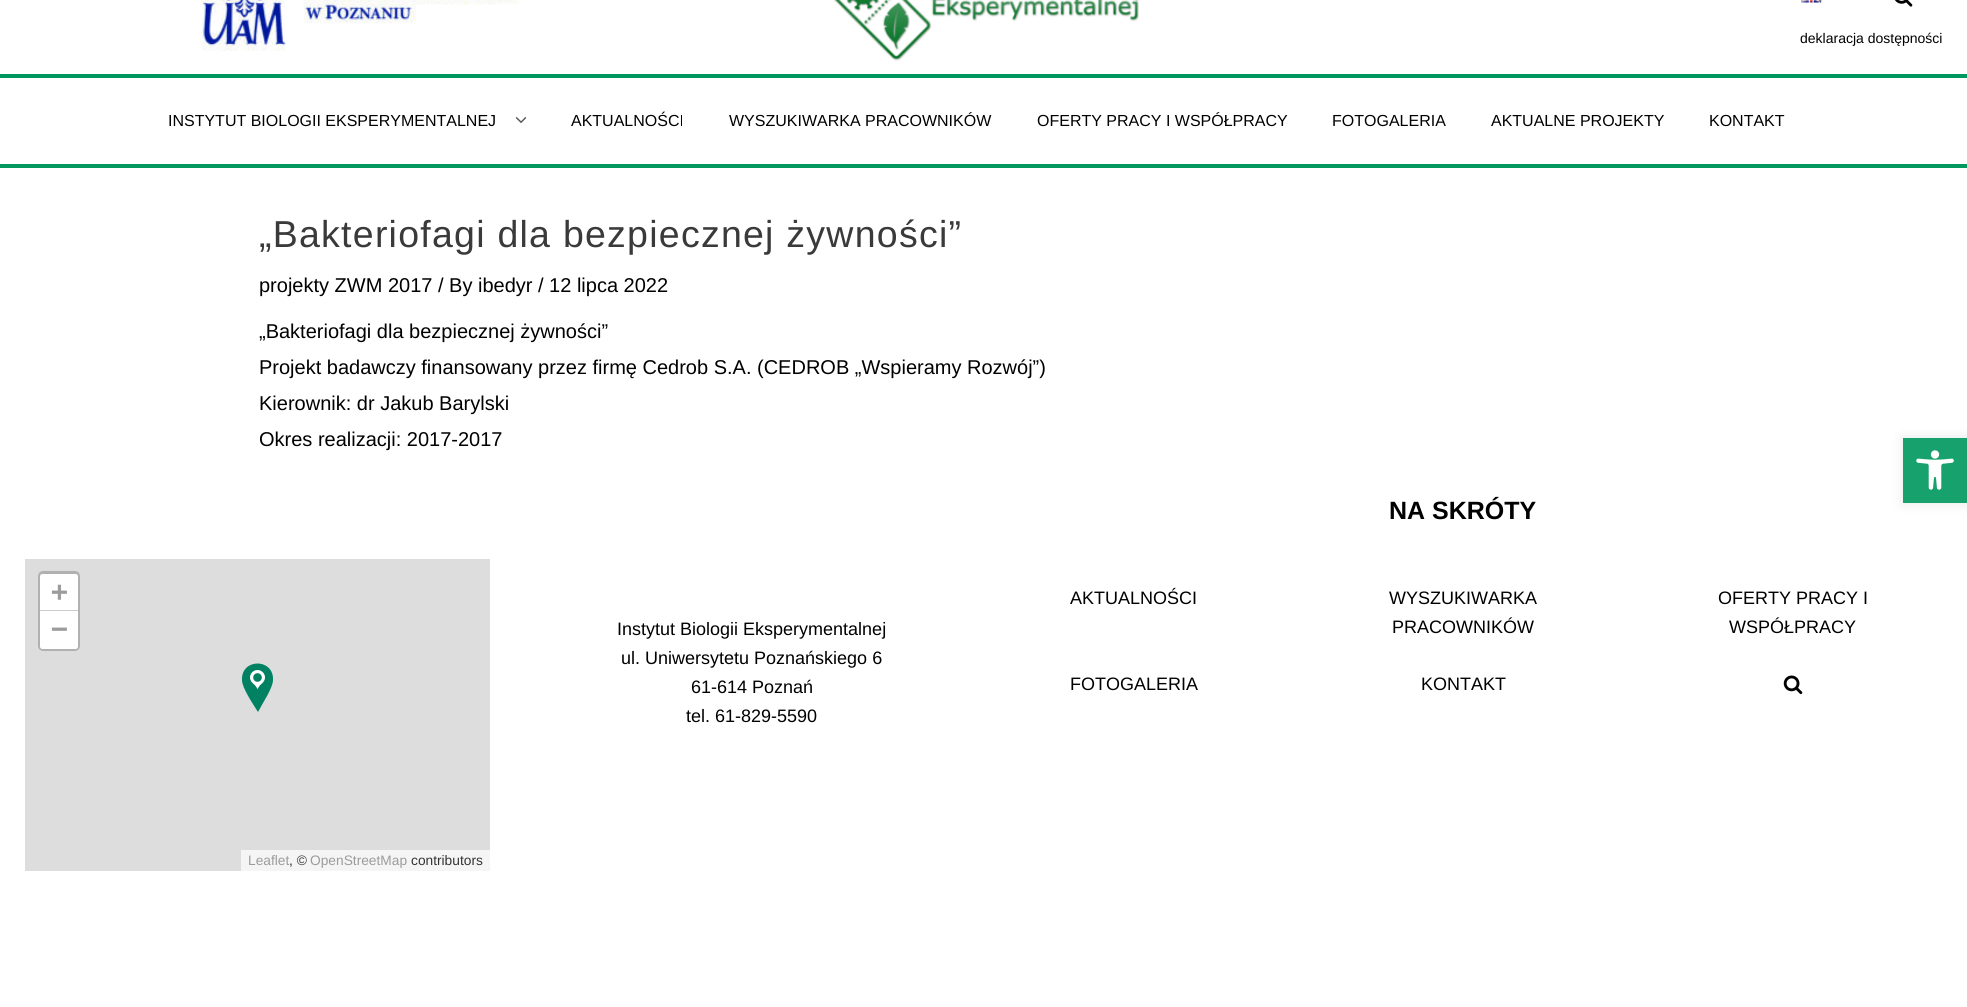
import math
import cairo



def draw_spaced(context, x, y, s, letter, word):
    context.move_to(x, y)
    for ch in s:
        context.show_text(ch)
        context.rel_move_to(letter + word * (ch == ' '), 0)


def rounded_rect(context, x, y, w, h, r):
    context.new_sub_path()
    for i, (u, v) in enumerate([(x + w - r, y + h - r), (x + r, y + h - r), (x + r, y + r), (x + w - r, y + r)]):
        context.arc(u, v, r, i * math.pi / 2, (i + 1) * math.pi / 2)
    context.close_path()


def draw_shadow(context, x, y, w, h, r, blur, alpha):
    context.push_group_with_content(cairo.Content.ALPHA)
    context.set_operator(cairo.Operator.SOURCE)
    for i in range(15, -16, -2):
        e = blur * i / 6
        if min(w, h) + 2 * e > 0:
            context.set_source_rgba(0, 0, 0, alpha * math.erfc((i - 1) / 8.5) / 2)
            rounded_rect(context, x - e, y - e, w + 2 * e, h + 2 * e, max(0, min(r + e + blur * .6, min(w, h) / 2 + e)))
            context.fill()
    context.mask(context.pop_group())


def draw_image(context, path, x, y, w, h):
    context.save()
    context.set_source_surface(cairo.ImageSurface.create_from_png(path), x, y)
    context.rectangle(x, y, w, h)
    context.fill()
    context.restore()


def draw(context):
    context.set_source_rgb(1, 1, 1)
    context.paint()
    context.set_source_rgb(0, 152 / 255, 95 / 255)
    context.rectangle(0, 74, 1967, 4)
    context.fill()
    draw_image(context, "images/1.png", 201, 0, 318, 51)
    draw_image(context, "images/2.png", 833, 0, 306, 61)
    draw_image(context, "images/3.png", 1801, 0, 21, 3)
    draw_image(context, "images/4.png", 1895, 0, 18, 7)
    context.rectangle(0, 164, 1967, 4)
    context.fill()
    draw_image(context, "images/5.png", 515, 117, 12, 6)
    context.set_source_rgb(221 / 255, 221 / 255, 221 / 255)
    context.rectangle(25, 559, 465, 312)
    context.fill()
    rounded_rect(context, 39.5, 572.5, 39, 77, 3.5)
    context.set_source_rgb(177 / 255, 177 / 255, 177 / 255)
    context.set_line_width(3)
    context.stroke()
    context.set_source_rgb(1, 1, 1)
    context.new_path()
    context.move_to(42.5, 574)
    context.line_to(75.5, 574)
    context.curve_to(77, 574, 78, 575, 78, 576.5)
    context.line_to(78, 611)
    context.line_to(40, 611)
    context.line_to(40, 576.5)
    context.curve_to(40, 575, 41, 574, 42.5, 574)
    context.close_path()
    context.fill()
    context.set_source_rgb(204 / 255, 204 / 255, 204 / 255)
    context.rectangle(40, 610, 38, 1)
    context.fill()
    context.set_source_rgb(1, 1, 1)
    context.new_path()
    context.move_to(40, 611)
    context.line_to(78, 611)
    context.line_to(78, 646.5)
    context.curve_to(78, 648, 77, 649, 75.5, 649)
    context.line_to(42.5, 649)
    context.curve_to(41, 649, 40, 648, 40, 646.5)
    context.close_path()
    context.fill()
    context.set_source_rgb(245 / 255, 245 / 255, 245 / 255)
    context.rectangle(241, 850, 249, 21)
    context.fill()
    context.set_source_rgb(0, 129 / 255, 98 / 255)
    context.new_path()
    context.move_to(258, 712)
    context.curve_to(262, 704, 273, 688, 273, 680)
    context.curve_to(274, 658, 241, 658, 242, 680)
    context.curve_to(242, 688, 253, 704, 258, 712)
    context.close_path()
    context.fill()
    draw_image(context, "images/6.png", 250, 670, 15, 20)
    draw_image(context, "images/7.png", 1783, 675, 20, 20)
    context.set_source_rgb(0, 0, 0)
    draw_shadow(context, 1903, 438, 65, 65, 0, 6, 0.1)
    context.set_source_rgb(23 / 255, 161 / 255, 109 / 255)
    context.rectangle(1903, 438, 64, 65)
    context.fill()
    draw_image(context, "images/8.png", 1916, 450, 38, 40)
    context.select_font_face("Liberation Sans")
    context.set_font_size(14)
    context.set_source_rgb(0, 0, 0)
    context.move_to(1800, 43)
    context.show_text("deklaracja dostępności")
    context.set_font_size(16)
    context.move_to(168, 126)
    context.show_text("INSTYTUT BIOLOGII EKSPERYMENTALNEJ")
    context.move_to(571, 126)
    context.show_text("AKTUALNOŚCI")
    context.move_to(729, 126)
    context.show_text("WYSZUKIWARKA PRACOWNIKÓW")
    context.move_to(1037, 126)
    context.show_text("OFERTY PRACY I WSPÓŁPRACY")
    context.move_to(1332, 126)
    context.show_text("FOTOGALERIA")
    context.move_to(1491, 126)
    context.show_text("AKTUALNE PROJEKTY")
    context.move_to(1709, 126)
    context.show_text("KONTAKT")
    context.set_font_size(37.5)
    context.set_source_rgb(58 / 255, 58 / 255, 58 / 255)
    draw_spaced(context, 259, 247, "„Bakteriofagi dla bezpiecznej żywności”", 1.25, 0)
    context.set_font_size(20)
    context.set_source_rgb(0, 0, 0)
    context.move_to(259, 292)
    context.show_text("projekty ZWM 2017 / By ibedyr / 12 lipca 2022")
    context.move_to(259, 338)
    context.show_text("„Bakteriofagi dla bezpiecznej żywności”")
    context.move_to(259, 374)
    context.show_text("Projekt badawczy finansowany przez firmę Cedrob S.A. (CEDROB „Wspieramy Rozwój”)")
    context.move_to(259, 410)
    context.show_text("Kierownik: dr Jakub Barylski")
    context.move_to(259, 446)
    context.show_text("Okres realizacji: 2017-2017")
    context.select_font_face("DejaVu Sans Mono", cairo.FontSlant.NORMAL, cairo.FontWeight.BOLD)
    context.set_font_size(28)
    context.set_source_rgb(156 / 255, 156 / 255, 156 / 255)
    context.move_to(51, 601)
    context.show_text("+")
    context.move_to(51, 638)
    context.show_text("−")
    context.select_font_face("Liberation Sans")
    context.set_font_size(13.75)
    context.move_to(248, 865)
    context.show_text("Leaflet")
    context.set_source_rgb(51 / 255, 51 / 255, 51 / 255)
    context.move_to(289, 865)
    context.show_text(", ©")
    context.set_source_rgb(156 / 255, 156 / 255, 156 / 255)
    context.move_to(310, 865)
    context.show_text("OpenStreetMap")
    context.set_source_rgb(51 / 255, 51 / 255, 51 / 255)
    context.move_to(411, 865)
    context.show_text("contributors")
    context.set_font_size(18)
    context.set_source_rgb(0, 0, 0)
    context.move_to(617, 635)
    context.show_text("Instytut Biologii Eksperymentalnej")
    context.move_to(621, 664)
    context.show_text("ul. Uniwersytetu Poznańskiego 6")
    context.move_to(691, 693)
    context.show_text("61-614 Poznań")
    context.move_to(686, 722)
    context.show_text("tel. 61-829-5590")
    context.select_font_face("Liberation Sans", cairo.FontSlant.NORMAL, cairo.FontWeight.BOLD)
    context.set_font_size(25)
    context.move_to(1389, 519)
    context.show_text("NA SKRÓTY")
    context.select_font_face("Liberation Sans")
    context.set_font_size(18)
    context.move_to(1070, 604)
    context.show_text("AKTUALNOŚCI")
    context.move_to(1389, 604)
    context.show_text("WYSZUKIWARKA")
    context.move_to(1392, 633)
    context.show_text("PRACOWNIKÓW")
    context.move_to(1718, 604)
    context.show_text("OFERTY PRACY I")
    context.move_to(1729, 633)
    context.show_text("WSPÓŁPRACY")
    context.move_to(1070, 690)
    context.show_text("FOTOGALERIA")
    context.move_to(1421, 690)
    context.show_text("KONTAKT")


surface = cairo.ImageSurface(cairo.Format.RGB24, 1967, 1007)
context = cairo.Context(surface)
options = cairo.FontOptions()
options.set_hint_metrics(cairo.HintMetrics.OFF)
options.set_hint_style(cairo.HintStyle.NONE)
context.set_font_options(options)
context.set_miter_limit(4)
draw(context)
surface.write_to_png("out.png")
